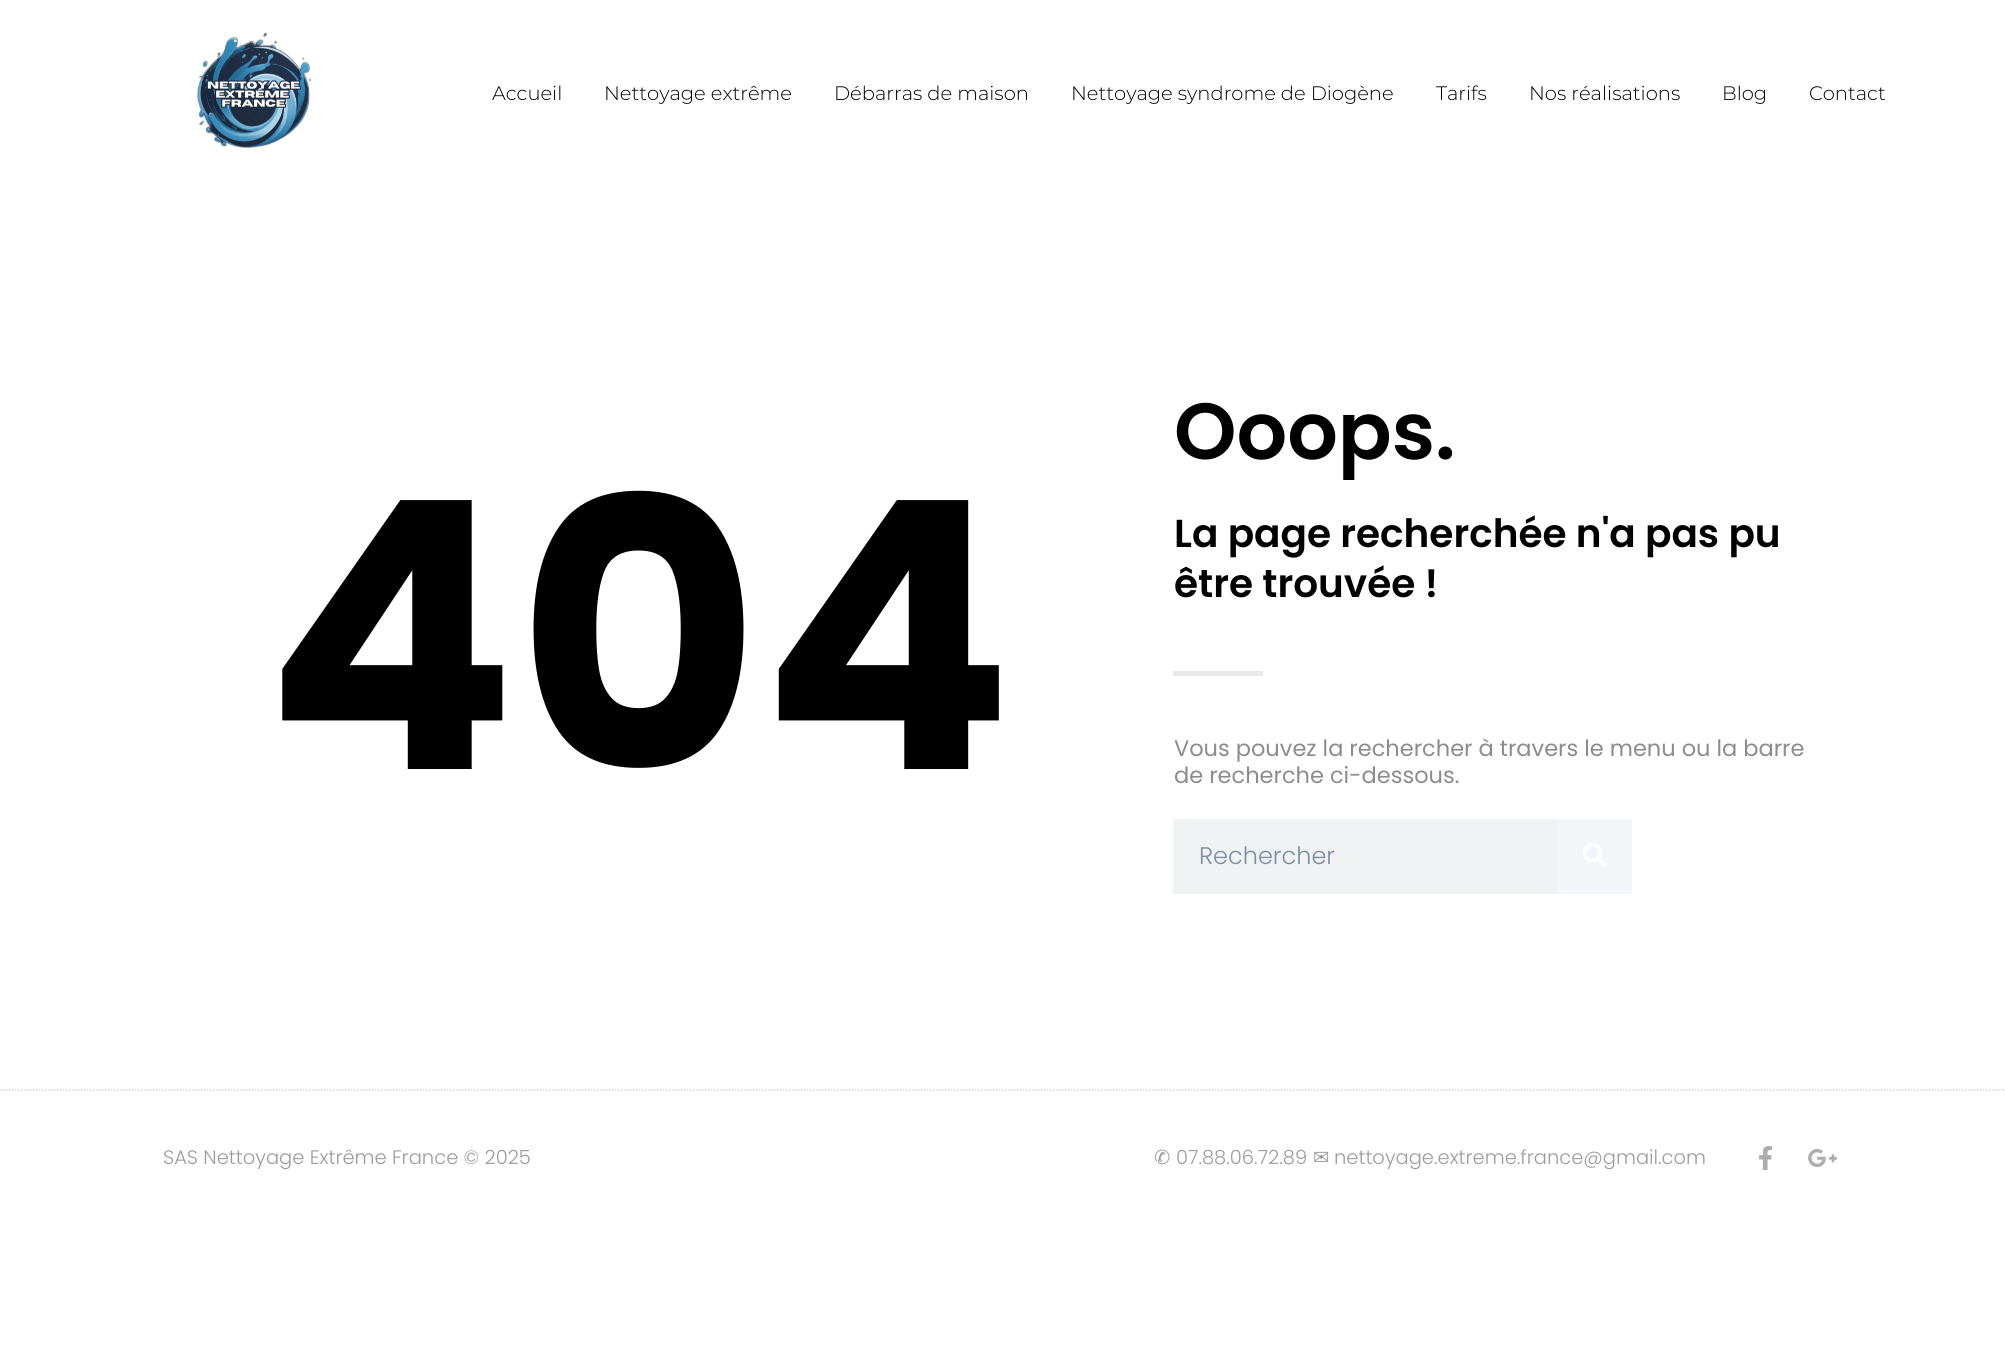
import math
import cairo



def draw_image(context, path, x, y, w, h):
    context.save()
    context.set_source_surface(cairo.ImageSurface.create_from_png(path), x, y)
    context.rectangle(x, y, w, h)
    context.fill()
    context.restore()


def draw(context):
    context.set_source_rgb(1, 1, 1)
    context.paint()
    draw_image(context, "images/1.png", 197, 32, 115, 116)
    context.set_source_rgb(232 / 255, 232 / 255, 232 / 255)
    context.rectangle(1173, 671, 90, 5)
    context.fill()
    context.set_source_rgb(241 / 255, 242 / 255, 243 / 255)
    context.rectangle(1173, 819, 384, 75)
    context.fill()
    context.set_source_rgb(243 / 255, 245 / 255, 248 / 255)
    context.rectangle(1557, 819, 75, 75)
    context.fill()
    draw_image(context, "images/2.png", 1582, 843, 25, 24)
    context.new_path()
    context.move_to(0, 1090)
    context.line_to(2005.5, 1090)
    context.set_source_rgb(214 / 255, 214 / 255, 214 / 255)
    context.set_line_width(1.5)
    context.set_dash([1.5, 1.5])
    context.stroke()
    draw_image(context, "images/3.png", 1759, 1146, 13, 24)
    draw_image(context, "images/4.png", 1808, 1149, 29, 18)
    context.select_font_face("Montserrat Light")
    context.set_font_size(19.5)
    context.set_source_rgb(0, 0, 0)
    context.move_to(492, 100)
    context.show_text("Accueil")
    context.move_to(604, 100)
    context.show_text("Nettoyage extrême")
    context.move_to(834, 100)
    context.show_text("Débarras de maison")
    context.move_to(1071, 100)
    context.show_text("Nettoyage syndrome de Diogène")
    context.move_to(1436, 100)
    context.show_text("Tarifs")
    context.move_to(1529, 100)
    context.show_text("Nos réalisations")
    context.move_to(1722, 100)
    context.show_text("Blog")
    context.move_to(1809, 100)
    context.show_text("Contact")
    context.select_font_face("Poppins", cairo.FontSlant.NORMAL, cairo.FontWeight.BOLD)
    context.set_font_size(373.5)
    context.move_to(264, 769)
    context.show_text("404")
    context.select_font_face("Poppins SemiBold")
    context.set_font_size(79.5)
    context.move_to(1174, 459)
    context.show_text("Ooops.")
    context.set_font_size(39)
    context.move_to(1174, 547)
    context.show_text("La page recherchée n'a pas pu")
    context.move_to(1174, 597)
    context.show_text("être trouvée !")
    context.select_font_face("Poppins")
    context.set_font_size(22.5)
    context.set_source_rgb(140 / 255, 140 / 255, 140 / 255)
    context.move_to(1174, 756)
    context.show_text("Vous pouvez la rechercher à travers le menu ou la barre")
    context.move_to(1174, 783)
    context.show_text("de recherche ci-dessous.")
    context.select_font_face("Poppins Light")
    context.set_font_size(24)
    context.set_source_rgb(126 / 255, 141 / 255, 163 / 255)
    context.move_to(1199, 864)
    context.show_text("Rechercher")
    context.set_font_size(19.5)
    context.set_source_rgb(156 / 255, 156 / 255, 156 / 255)
    context.move_to(163, 1164)
    context.show_text("SAS Nettoyage Extrême France © 2025")
    context.select_font_face("DejaVu Sans")
    context.move_to(1154, 1164)
    context.show_text("✆")
    context.select_font_face("Poppins Light")
    context.move_to(1176, 1164)
    context.show_text("07.88.06.72.89")
    context.select_font_face("DejaVu Sans")
    context.move_to(1313, 1164)
    context.show_text("✉")
    context.select_font_face("Poppins Light")
    context.move_to(1334, 1164)
    context.show_text("nettoyage.extreme.france@gmail.com")


surface = cairo.ImageSurface(cairo.Format.RGB24, 2005, 1347)
context = cairo.Context(surface)
options = cairo.FontOptions()
options.set_hint_metrics(cairo.HintMetrics.OFF)
options.set_hint_style(cairo.HintStyle.NONE)
context.set_font_options(options)
context.set_miter_limit(4)
draw(context)
surface.write_to_png("out.png")
